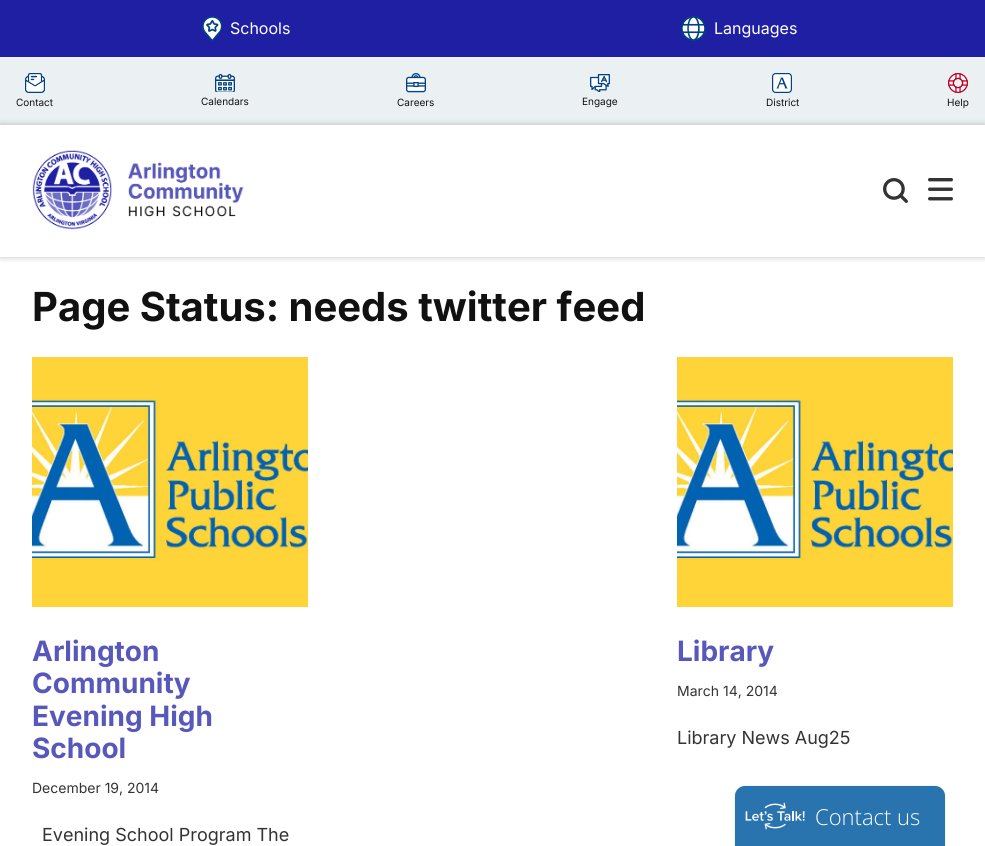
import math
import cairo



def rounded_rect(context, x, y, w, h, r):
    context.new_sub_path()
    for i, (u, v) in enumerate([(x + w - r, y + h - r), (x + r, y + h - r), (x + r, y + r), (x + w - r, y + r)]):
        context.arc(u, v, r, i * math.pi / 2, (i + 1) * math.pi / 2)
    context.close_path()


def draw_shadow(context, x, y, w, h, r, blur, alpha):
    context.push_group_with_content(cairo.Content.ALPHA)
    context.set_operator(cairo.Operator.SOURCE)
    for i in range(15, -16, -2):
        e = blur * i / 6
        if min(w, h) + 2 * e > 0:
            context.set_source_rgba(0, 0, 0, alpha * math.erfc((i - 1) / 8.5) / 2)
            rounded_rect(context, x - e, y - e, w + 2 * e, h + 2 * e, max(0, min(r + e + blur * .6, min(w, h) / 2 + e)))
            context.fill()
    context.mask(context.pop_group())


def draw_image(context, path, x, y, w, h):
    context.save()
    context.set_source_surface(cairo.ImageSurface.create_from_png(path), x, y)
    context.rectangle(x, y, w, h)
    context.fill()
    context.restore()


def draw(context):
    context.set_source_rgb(1, 1, 1)
    context.paint()
    context.set_source_rgb(31 / 255, 31 / 255, 164 / 255)
    context.rectangle(0, 0, 985, 57)
    context.fill()
    draw_image(context, "images/1.png", 202, 16, 20, 25)
    draw_image(context, "images/2.png", 681, 16, 25, 25)
    context.set_source_rgb(235 / 255, 240 / 255, 243 / 255)
    context.rectangle(0, 57, 985, 68)
    context.fill()
    draw_image(context, "images/3.png", 25, 73, 20, 20)
    draw_image(context, "images/4.png", 215, 74, 20, 18)
    draw_image(context, "images/5.png", 406, 73, 20, 20)
    draw_image(context, "images/6.png", 590, 74, 20, 18)
    draw_image(context, "images/7.png", 772, 73, 20, 20)
    draw_image(context, "images/8.png", 948, 73, 20, 20)
    context.save()
    context.set_fill_rule(cairo.FillRule.EVEN_ODD)
    context.new_path()
    context.move_to(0, 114)
    context.line_to(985, 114)
    context.line_to(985, 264)
    context.line_to(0, 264)
    context.close_path()
    context.move_to(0, 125)
    context.line_to(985, 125)
    context.line_to(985, 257)
    context.line_to(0, 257)
    context.close_path()
    context.clip()
    context.set_source_rgb(0, 0, 0)
    draw_shadow(context, 0, 123, 985, 132, 0, 2.5, 0.13)
    context.restore()
    context.save()
    context.set_fill_rule(cairo.FillRule.EVEN_ODD)
    context.new_path()
    context.move_to(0, 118)
    context.line_to(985, 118)
    context.line_to(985, 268)
    context.line_to(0, 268)
    context.close_path()
    context.move_to(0, 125)
    context.line_to(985, 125)
    context.line_to(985, 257)
    context.line_to(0, 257)
    context.close_path()
    context.clip()
    context.set_source_rgb(0, 0, 0)
    draw_shadow(context, 0, 127, 985, 132, 0, 2.5, 0.13)
    context.restore()
    draw_image(context, "images/9.png", 32, 150, 212, 80)
    draw_image(context, "images/10.png", 883, 178, 25, 25)
    draw_image(context, "images/11.png", 928, 178, 25, 23)
    draw_image(context, "images/12.png", 32, 357, 276, 250)
    draw_image(context, "images/13.png", 677, 357, 276, 250)
    context.set_source_rgb(0, 0, 0)
    draw_shadow(context, 735, 786, 210, 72, 10, 0.5, 0.22)
    context.set_source_rgb(41 / 255, 116 / 255, 174 / 255)
    context.new_path()
    context.move_to(745, 786)
    context.line_to(935, 786)
    context.curve_to(940.5, 786, 945, 790.5, 945, 796)
    context.line_to(945, 846)
    context.line_to(735, 846)
    context.line_to(735, 796)
    context.curve_to(735, 790.5, 739.5, 786, 745, 786)
    context.close_path()
    context.fill()
    draw_image(context, "images/14.png", 745, 802, 60, 28)
    context.select_font_face("Inter")
    context.set_font_size(16)
    context.set_source_rgb(1, 1, 1)
    context.move_to(230, 34)
    context.show_text("Schools")
    context.move_to(714, 34)
    context.show_text("Languages")
    context.set_font_size(10)
    context.set_source_rgb(17 / 255, 17 / 255, 17 / 255)
    context.move_to(16, 106)
    context.show_text("Contact")
    context.move_to(201, 105)
    context.show_text("Calendars")
    context.move_to(397, 106)
    context.show_text("Careers")
    context.move_to(582, 105)
    context.show_text("Engage")
    context.move_to(766, 106)
    context.show_text("District")
    context.move_to(947, 106)
    context.show_text("Help")
    context.select_font_face("Inter", cairo.FontSlant.NORMAL, cairo.FontWeight.BOLD)
    context.set_font_size(40)
    context.move_to(32, 321)
    context.show_text("Page Status: needs twitter feed")
    context.set_font_size(28)
    context.set_source_rgb(88 / 255, 88 / 255, 187 / 255)
    context.move_to(32, 661)
    context.show_text("Arlington")
    context.move_to(32, 693)
    context.show_text("Community")
    context.move_to(32, 726)
    context.show_text("Evening High")
    context.move_to(32, 758)
    context.show_text("School")
    context.select_font_face("Inter")
    context.set_font_size(14)
    context.set_source_rgb(51 / 255, 51 / 255, 51 / 255)
    context.move_to(32, 793)
    context.show_text("December 19, 2014")
    context.set_font_size(18)
    context.move_to(42, 841)
    context.show_text("Evening School Program The")
    context.select_font_face("Inter", cairo.FontSlant.NORMAL, cairo.FontWeight.BOLD)
    context.set_font_size(28)
    context.set_source_rgb(88 / 255, 88 / 255, 187 / 255)
    context.move_to(677, 661)
    context.show_text("Library")
    context.select_font_face("Inter")
    context.set_font_size(14)
    context.set_source_rgb(51 / 255, 51 / 255, 51 / 255)
    context.move_to(677, 696)
    context.show_text("March 14, 2014")
    context.set_font_size(18)
    context.move_to(677, 744)
    context.show_text("Library News Aug25")
    context.select_font_face("Open Sans Light")
    context.set_font_size(22)
    context.set_source_rgb(1, 1, 1)
    context.move_to(815, 825)
    context.show_text("Contact us")


surface = cairo.ImageSurface(cairo.Format.RGB24, 985, 846)
context = cairo.Context(surface)
options = cairo.FontOptions()
options.set_hint_metrics(cairo.HintMetrics.OFF)
options.set_hint_style(cairo.HintStyle.NONE)
context.set_font_options(options)
context.set_miter_limit(4)
draw(context)
surface.write_to_png("out.png")
